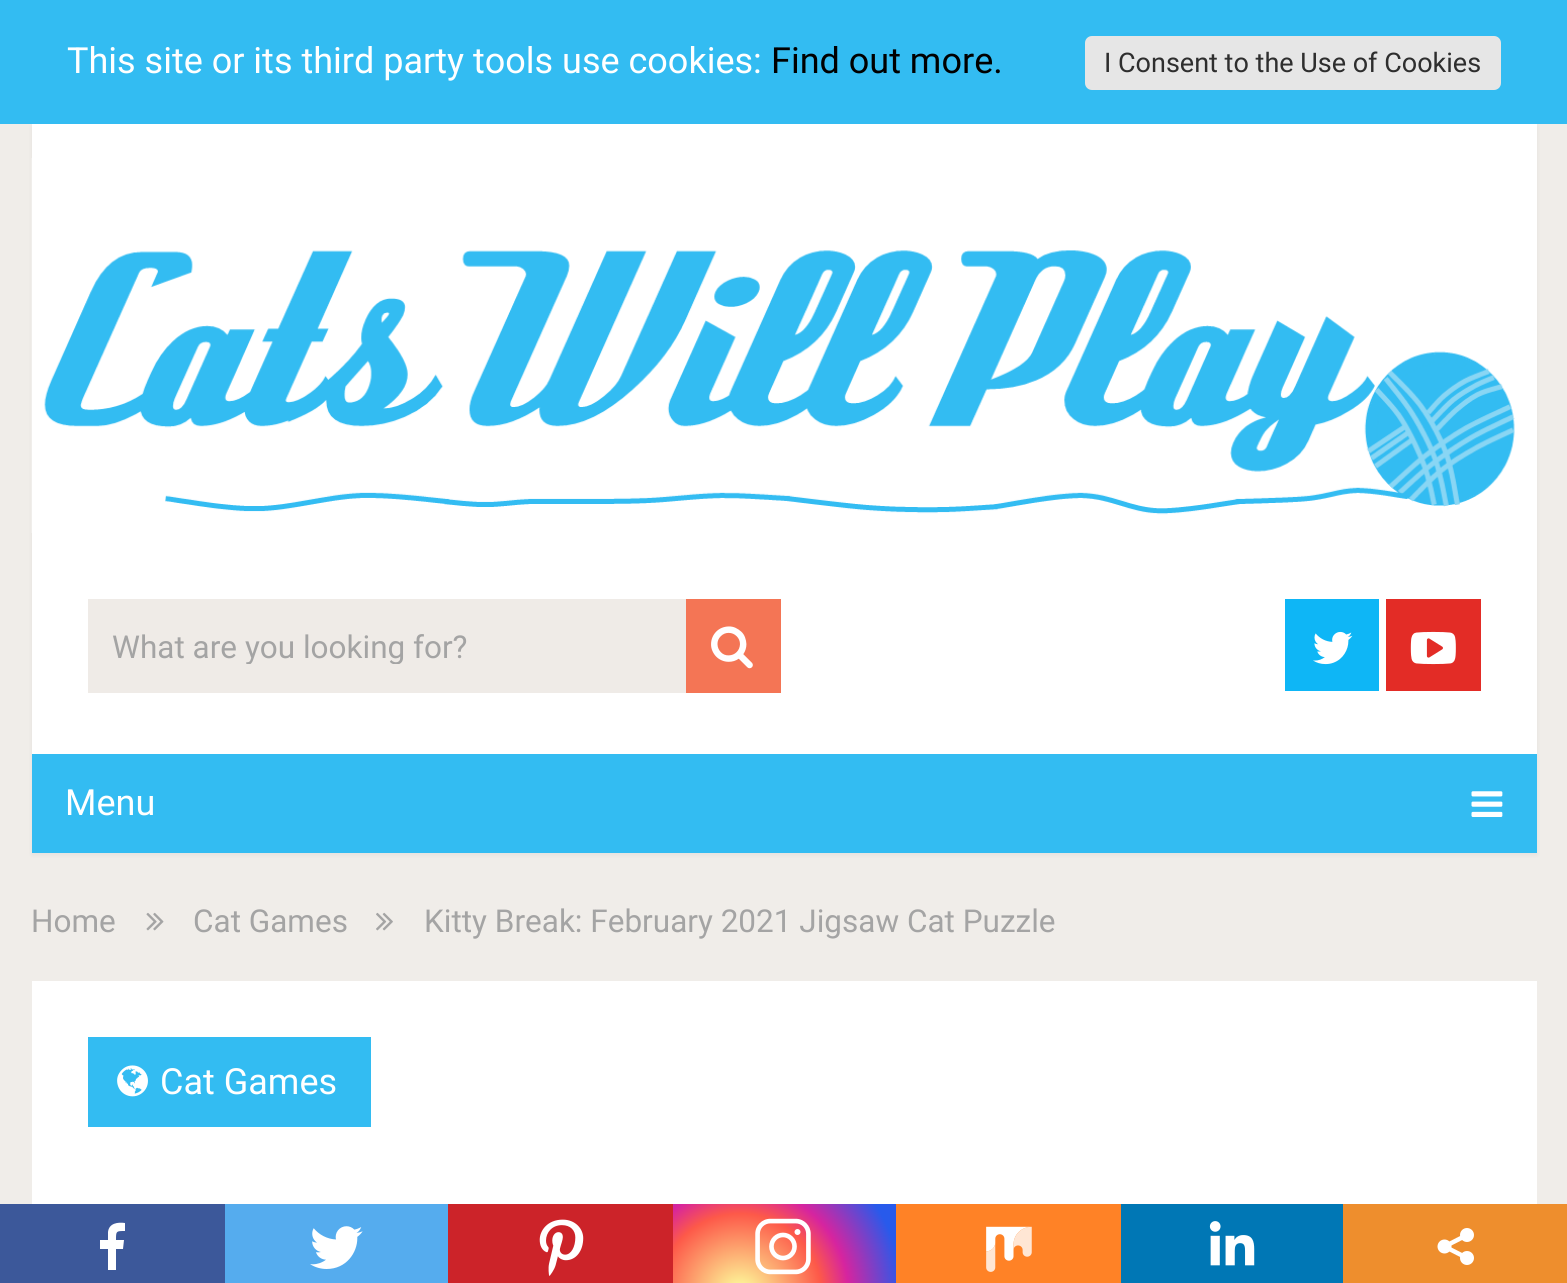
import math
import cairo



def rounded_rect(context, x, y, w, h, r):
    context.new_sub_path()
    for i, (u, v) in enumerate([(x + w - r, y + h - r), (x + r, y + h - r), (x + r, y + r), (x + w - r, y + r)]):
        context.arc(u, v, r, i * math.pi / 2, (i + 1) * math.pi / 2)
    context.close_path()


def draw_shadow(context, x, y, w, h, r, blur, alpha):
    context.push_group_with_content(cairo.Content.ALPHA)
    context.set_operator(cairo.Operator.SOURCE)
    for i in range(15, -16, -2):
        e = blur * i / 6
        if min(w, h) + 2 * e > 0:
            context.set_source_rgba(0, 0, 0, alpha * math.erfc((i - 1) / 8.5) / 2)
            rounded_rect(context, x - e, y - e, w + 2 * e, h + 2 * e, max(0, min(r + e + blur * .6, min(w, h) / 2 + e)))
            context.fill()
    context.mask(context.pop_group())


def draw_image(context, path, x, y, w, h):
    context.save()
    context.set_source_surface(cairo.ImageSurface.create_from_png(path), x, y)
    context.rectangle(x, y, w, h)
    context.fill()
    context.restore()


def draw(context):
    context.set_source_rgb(240 / 255, 237 / 255, 233 / 255)
    context.paint()
    context.set_source_rgb(0, 0, 0)
    draw_shadow(context, 32, 126, 1505, 729, 0, 2, 0.05)
    context.set_source_rgb(51 / 255, 188 / 255, 242 / 255)
    context.rectangle(0, 0, 1567, 124)
    context.fill()
    context.set_source_rgb(230 / 255, 230 / 255, 230 / 255)
    rounded_rect(context, 1085, 36, 416, 54, 7)
    context.fill()
    context.set_source_rgb(1, 1, 1)
    context.rectangle(32, 124, 1505, 630)
    context.fill()
    draw_image(context, "images/1.png", 31, 158, 1484, 375)
    context.set_source_rgb(239 / 255, 235 / 255, 231 / 255)
    context.rectangle(88, 599, 598, 94)
    context.fill()
    context.set_source_rgb(244 / 255, 117 / 255, 85 / 255)
    context.rectangle(686, 599, 95, 94)
    context.fill()
    draw_image(context, "images/2.png", 711, 626, 42, 43)
    context.set_source_rgb(14 / 255, 182 / 255, 246 / 255)
    context.rectangle(1285, 599, 94, 92)
    context.fill()
    draw_image(context, "images/3.png", 1313, 631, 40, 34)
    context.set_source_rgb(227 / 255, 44 / 255, 38 / 255)
    context.rectangle(1386, 599, 95, 92)
    context.fill()
    draw_image(context, "images/4.png", 1410, 631, 46, 34)
    context.set_source_rgb(51 / 255, 188 / 255, 242 / 255)
    context.rectangle(32, 754, 1505, 99)
    context.fill()
    draw_image(context, "images/5.png", 1471, 791, 32, 26)
    draw_image(context, "images/6.png", 146, 912, 18, 19)
    draw_image(context, "images/7.png", 376, 912, 17, 19)
    context.set_source_rgb(1, 1, 1)
    context.rectangle(32, 981, 1505, 223)
    context.fill()
    context.set_source_rgb(51 / 255, 188 / 255, 242 / 255)
    context.rectangle(88, 1037, 283, 90)
    context.fill()
    draw_image(context, "images/8.png", 117, 1065, 31, 32)
    context.set_source_rgb(60 / 255, 88 / 255, 154 / 255)
    context.rectangle(0, 1204, 225, 79)
    context.fill()
    context.set_source_rgb(1, 1, 1)
    context.new_path()
    context.move_to(116, 1270)
    context.line_to(116, 1249)
    context.line_to(123, 1249)
    context.line_to(124, 1240)
    context.line_to(116, 1240)
    context.curve_to(116, 1231, 116, 1231, 125, 1231)
    context.line_to(125, 1223)
    context.curve_to(118, 1222, 109, 1223, 108, 1232)
    context.line_to(108, 1240)
    context.line_to(100, 1240)
    context.line_to(100, 1249)
    context.line_to(108, 1249)
    context.line_to(108, 1270)
    context.close_path()
    context.fill()
    context.set_source_rgb(85 / 255, 172 / 255, 238 / 255)
    context.rectangle(225, 1204, 223, 79)
    context.fill()
    draw_image(context, "images/9.png", 310, 1226, 53, 43)
    context.set_source_rgb(204 / 255, 35 / 255, 41 / 255)
    context.rectangle(448, 1204, 225, 79)
    context.fill()
    draw_image(context, "images/10.png", 539, 1219, 45, 57)
    gradient = cairo.RadialGradient(740, 1295, 0, 740, 1295, 181)
    gradient.add_color_stop_rgba(0, 253 / 255, 244 / 255, 151 / 255, 1)
    gradient.add_color_stop_rgba(0.05, 253 / 255, 244 / 255, 151 / 255, 1)
    gradient.add_color_stop_rgba(0.45, 253 / 255, 89 / 255, 73 / 255, 1)
    gradient.add_color_stop_rgba(0.6, 214 / 255, 36 / 255, 159 / 255, 1)
    gradient.add_color_stop_rgba(0.9, 40 / 255, 90 / 255, 235 / 255, 1)
    context.set_source(gradient)
    context.rectangle(673, 1204, 223, 79)
    context.fill()
    draw_image(context, "images/11.png", 755, 1218, 56, 57)
    context.set_source_rgb(1, 130 / 255, 38 / 255)
    context.rectangle(896, 1204, 225, 79)
    context.fill()
    draw_image(context, "images/12.png", 986, 1226, 46, 46)
    context.set_source_rgb(0, 119 / 255, 181 / 255)
    context.rectangle(1121, 1204, 222, 79)
    context.fill()
    draw_image(context, "images/13.png", 1209, 1221, 46, 45)
    context.set_source_rgb(238 / 255, 142 / 255, 45 / 255)
    context.rectangle(1343, 1204, 224, 79)
    context.fill()
    context.set_source_rgb(1, 1, 1)
    context.arc(1444.5, 1246.5, 7, 0, 2 * math.pi)
    context.fill()
    context.arc(1467, 1235, 7, 0, 2 * math.pi)
    context.fill()
    context.arc(1467, 1258, 7, 0, 2 * math.pi)
    context.fill()
    context.new_path()
    context.move_to(1444.5, 1246.5)
    context.line_to(1467, 1235)
    context.move_to(1467, 1258)
    context.line_to(1444.5, 1246.5)
    context.set_line_width(4.5)
    context.stroke()
    context.select_font_face("Roboto")
    context.set_font_size(36)
    context.move_to(67, 73)
    context.show_text("This site or its third party tools use cookies:")
    context.set_source_rgb(0, 0, 0)
    context.move_to(771, 73)
    context.show_text("Find out more.")
    context.set_font_size(27)
    context.set_source_rgb(46 / 255, 46 / 255, 46 / 255)
    context.move_to(1104, 72)
    context.show_text("I Consent to the Use of Cookies")
    context.save()
    context.rectangle(90, 628, 689, 36)
    context.clip()
    context.set_font_size(31.5)
    context.set_source_rgb(164 / 255, 164 / 255, 164 / 255)
    context.move_to(112, 658)
    context.show_text("What are you looking for?")
    context.restore()
    context.set_font_size(36)
    context.set_source_rgb(1, 1, 1)
    context.move_to(65, 815)
    context.show_text("Menu")
    context.set_font_size(31.5)
    context.set_source_rgb(164 / 255, 164 / 255, 164 / 255)
    context.move_to(31, 932)
    context.show_text("Home")
    context.move_to(193, 932)
    context.show_text("Cat Games")
    context.move_to(424, 932)
    context.show_text("Kitty Break: February 2021 Jigsaw Cat Puzzle")
    context.set_font_size(36)
    context.set_source_rgb(1, 1, 1)
    context.move_to(160, 1094)
    context.show_text("Cat Games")


surface = cairo.ImageSurface(cairo.Format.RGB24, 1567, 1283)
context = cairo.Context(surface)
options = cairo.FontOptions()
options.set_hint_metrics(cairo.HintMetrics.OFF)
options.set_hint_style(cairo.HintStyle.NONE)
context.set_font_options(options)
context.set_miter_limit(4)
draw(context)
surface.write_to_png("out.png")
